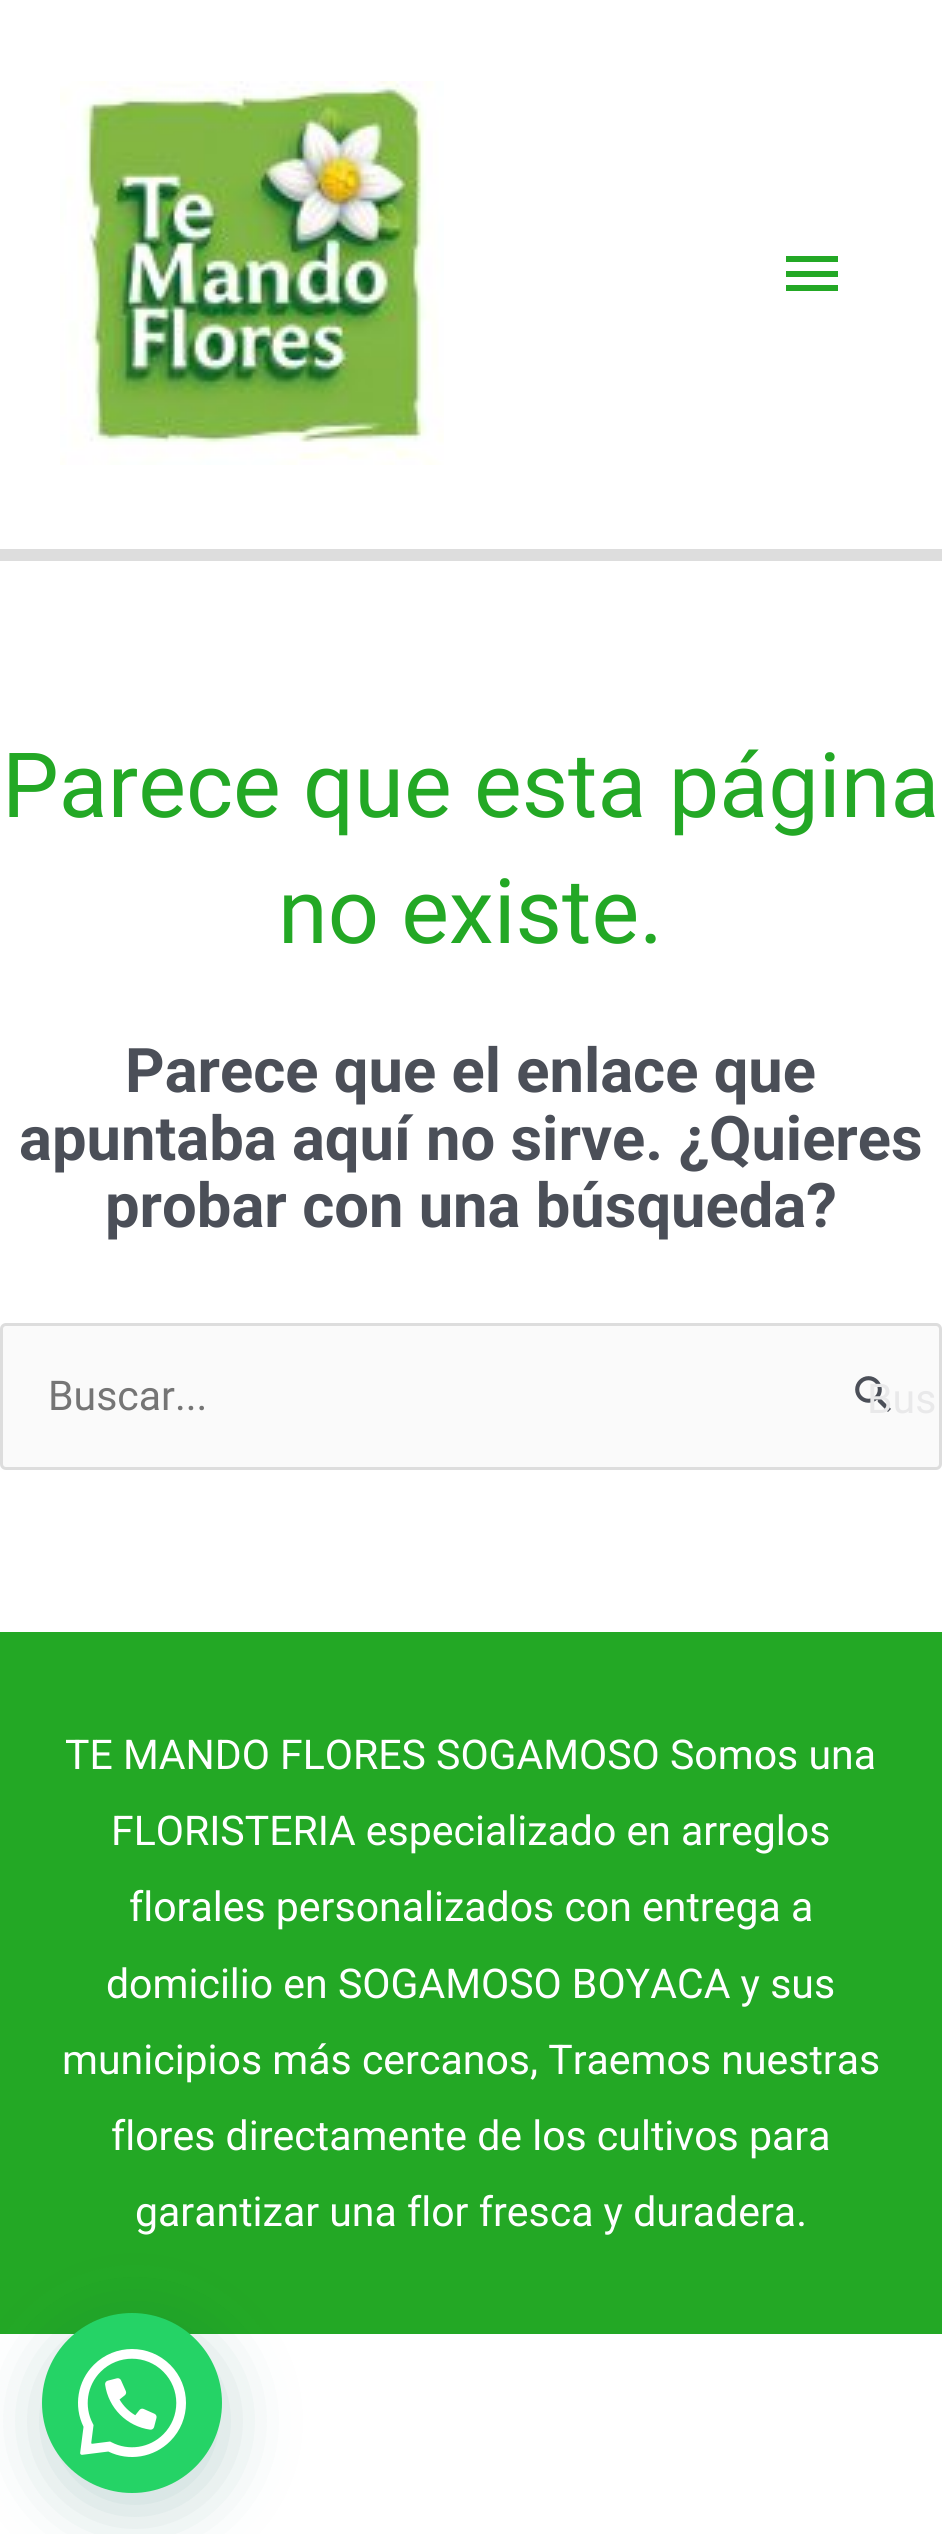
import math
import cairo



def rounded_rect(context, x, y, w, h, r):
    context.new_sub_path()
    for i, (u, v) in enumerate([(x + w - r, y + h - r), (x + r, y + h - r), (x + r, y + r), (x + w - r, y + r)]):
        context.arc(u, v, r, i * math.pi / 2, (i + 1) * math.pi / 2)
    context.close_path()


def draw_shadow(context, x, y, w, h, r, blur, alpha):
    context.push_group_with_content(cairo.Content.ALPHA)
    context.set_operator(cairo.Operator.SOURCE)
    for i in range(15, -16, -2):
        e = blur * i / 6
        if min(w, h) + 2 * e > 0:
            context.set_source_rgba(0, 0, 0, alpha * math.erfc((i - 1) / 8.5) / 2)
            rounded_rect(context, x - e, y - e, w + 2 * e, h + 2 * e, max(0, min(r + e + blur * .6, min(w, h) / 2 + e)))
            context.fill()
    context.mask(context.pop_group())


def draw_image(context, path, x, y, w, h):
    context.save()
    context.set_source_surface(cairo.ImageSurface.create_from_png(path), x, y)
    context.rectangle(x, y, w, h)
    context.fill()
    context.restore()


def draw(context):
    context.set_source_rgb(1, 1, 1)
    context.paint()
    context.set_source_rgb(221 / 255, 221 / 255, 221 / 255)
    context.rectangle(0, 549, 942, 12)
    context.fill()
    draw_image(context, "images/1.png", 60, 81, 384, 384)
    context.set_source_rgb(35 / 255, 168 / 255, 37 / 255)
    context.new_path()
    context.move_to(786, 256)
    context.line_to(838, 256)
    context.line_to(838, 262)
    context.line_to(786, 262)
    context.close_path()
    context.move_to(786, 277)
    context.line_to(786, 271)
    context.line_to(838, 271)
    context.line_to(838, 277)
    context.close_path()
    context.move_to(786, 291)
    context.line_to(786, 285)
    context.line_to(838, 285)
    context.line_to(838, 291)
    context.close_path()
    context.fill()
    context.set_source_rgb(250 / 255, 250 / 255, 250 / 255)
    rounded_rect(context, 1.5, 1324.5, 939, 144, 4.5)
    context.fill_preserve()
    context.set_source_rgb(221 / 255, 221 / 255, 221 / 255)
    context.set_line_width(3)
    context.stroke()
    draw_image(context, "images/2.png", 855, 1376, 36, 36)
    context.set_source_rgb(35 / 255, 168 / 255, 37 / 255)
    context.rectangle(0, 1632, 942, 702)
    context.fill()
    context.set_source_rgb(7 / 255, 94 / 255, 84 / 255)
    draw_shadow(context, 45, 2331, 180, 180, 90, 36, 0.24)
    context.set_source_rgb(37 / 255, 211 / 255, 102 / 255)
    context.arc(132, 2403, 90, 0, 2 * math.pi)
    context.fill()
    draw_image(context, "images/3.png", 78, 2349, 108, 108)
    context.select_font_face("Roboto")
    context.set_font_size(90)
    context.set_source_rgb(35 / 255, 168 / 255, 37 / 255)
    context.move_to(2, 817)
    context.show_text("Parece que esta página")
    context.move_to(278, 943)
    context.show_text("no existe.")
    context.select_font_face("Roboto", cairo.FontSlant.NORMAL, cairo.FontWeight.BOLD)
    context.set_font_size(61.5)
    context.set_source_rgb(75 / 255, 79 / 255, 88 / 255)
    context.move_to(125, 1092)
    context.show_text("Parece que el enlace que")
    context.move_to(19, 1160)
    context.show_text("apuntaba aquí no sirve. ¿Quieres")
    context.move_to(105, 1227)
    context.show_text("probar con una búsqueda?")
    context.select_font_face("Roboto")
    context.set_font_size(41)
    context.set_source_rgb(117 / 255, 117 / 255, 117 / 255)
    context.move_to(48, 1410)
    context.show_text("Buscar...")
    context.set_source_rgb(233 / 255, 233 / 255, 234 / 255)
    context.move_to(867, 1413)
    context.show_text("Bus")
    context.set_source_rgb(1, 1, 1)
    context.move_to(65, 1769)
    context.show_text("TE MANDO FLORES SOGAMOSO Somos una")
    context.move_to(111, 1845)
    context.show_text("FLORISTERIA especializado en arreglos")
    context.move_to(129, 1921)
    context.show_text("florales personalizados con entrega a")
    context.move_to(106, 1998)
    context.show_text("domicilio en SOGAMOSO BOYACA y sus")
    context.move_to(62, 2074)
    context.show_text("municipios más cercanos, Traemos nuestras")
    context.move_to(111, 2150)
    context.show_text("flores directamente de los cultivos")
    context.move_to(749, 2150)
    context.show_text("para")
    context.move_to(135, 2226)
    context.show_text("garantizar una flor fresca y duradera.")


surface = cairo.ImageSurface(cairo.Format.RGB24, 942, 2534)
context = cairo.Context(surface)
options = cairo.FontOptions()
options.set_hint_metrics(cairo.HintMetrics.OFF)
options.set_hint_style(cairo.HintStyle.NONE)
context.set_font_options(options)
context.set_miter_limit(4)
draw(context)
surface.write_to_png("out.png")
